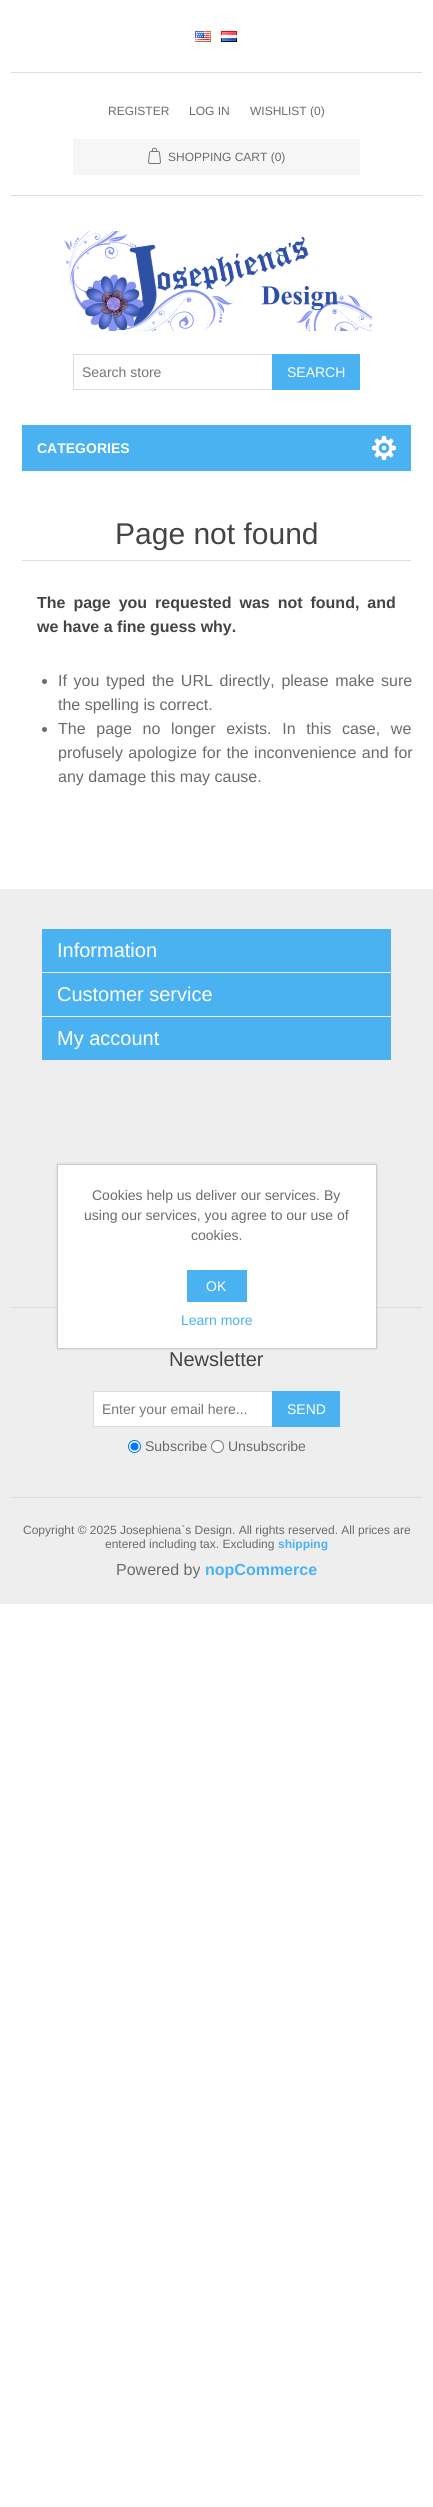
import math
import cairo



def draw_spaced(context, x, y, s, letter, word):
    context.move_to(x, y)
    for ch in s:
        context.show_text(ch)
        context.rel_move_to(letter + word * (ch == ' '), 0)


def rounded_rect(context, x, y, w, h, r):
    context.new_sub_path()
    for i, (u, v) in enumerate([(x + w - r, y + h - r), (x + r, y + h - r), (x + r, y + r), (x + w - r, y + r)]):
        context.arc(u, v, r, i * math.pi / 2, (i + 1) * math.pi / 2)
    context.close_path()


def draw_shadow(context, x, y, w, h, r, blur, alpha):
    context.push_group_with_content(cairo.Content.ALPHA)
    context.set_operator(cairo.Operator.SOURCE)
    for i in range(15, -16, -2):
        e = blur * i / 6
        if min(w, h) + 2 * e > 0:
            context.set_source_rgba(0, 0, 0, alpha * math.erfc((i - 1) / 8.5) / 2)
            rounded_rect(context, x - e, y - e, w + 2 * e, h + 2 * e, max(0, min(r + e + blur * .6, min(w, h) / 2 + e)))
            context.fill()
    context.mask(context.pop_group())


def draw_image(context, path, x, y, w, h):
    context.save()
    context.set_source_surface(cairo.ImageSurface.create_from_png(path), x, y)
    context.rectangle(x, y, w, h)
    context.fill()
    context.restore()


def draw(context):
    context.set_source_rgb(1, 1, 1)
    context.paint()
    context.set_source_rgb(221 / 255, 221 / 255, 221 / 255)
    context.rectangle(11, 195, 411, 1)
    context.fill()
    context.rectangle(11, 72, 411, 1)
    context.fill()
    draw_image(context, "images/1.png", 195, 31, 16, 11)
    draw_image(context, "images/2.png", 221, 31, 16, 11)
    context.set_source_rgb(246 / 255, 246 / 255, 246 / 255)
    context.rectangle(73, 139, 287, 36)
    context.fill()
    draw_image(context, "images/3.png", 148, 147, 13, 17)
    draw_image(context, "images/4.png", 64, 231, 308, 100)
    context.rectangle(73.5, 354.5, 199, 35)
    context.set_source_rgb(221 / 255, 221 / 255, 221 / 255)
    context.set_line_width(1)
    context.stroke()
    context.set_source_rgb(74 / 255, 178 / 255, 241 / 255)
    context.rectangle(272, 354, 88, 36)
    context.fill()
    context.rectangle(22, 425, 389, 46)
    context.fill()
    draw_image(context, "images/5.png", 372, 436, 24, 24)
    context.set_source_rgb(221 / 255, 221 / 255, 221 / 255)
    context.rectangle(22, 560, 389, 1)
    context.fill()
    context.set_source_rgb(107 / 255, 107 / 255, 107 / 255)
    context.arc(44.5, 681.5, 2.5, 0, 2 * math.pi)
    context.fill()
    context.arc(44.5, 729.5, 2.5, 0, 2 * math.pi)
    context.fill()
    context.set_source_rgb(238 / 255, 238 / 255, 238 / 255)
    context.rectangle(0, 889, 433, 715)
    context.fill()
    context.set_source_rgb(221 / 255, 221 / 255, 221 / 255)
    context.rectangle(11, 1497, 411, 1)
    context.fill()
    context.set_source_rgb(74 / 255, 178 / 255, 241 / 255)
    context.rectangle(42, 929, 349, 43)
    context.fill()
    context.rectangle(42, 973, 349, 43)
    context.fill()
    context.rectangle(42, 1017, 349, 43)
    context.fill()
    context.set_source_rgb(221 / 255, 221 / 255, 221 / 255)
    context.rectangle(11, 1307, 411, 1)
    context.fill()
    context.set_source_rgb(1, 1, 1)
    context.rectangle(93.5, 1391.5, 179, 35)
    context.fill_preserve()
    context.set_source_rgb(221 / 255, 221 / 255, 221 / 255)
    context.stroke()
    context.set_source_rgb(74 / 255, 178 / 255, 241 / 255)
    context.rectangle(272, 1391, 68, 36)
    context.fill()
    context.set_source_rgb(1, 1, 1)
    context.arc(134.5, 1446.5, 6, 0, 2 * math.pi)
    context.fill_preserve()
    context.set_source_rgb(0, 117 / 255, 1)
    context.stroke()
    context.arc(134.5, 1446.5, 4, 0, 2 * math.pi)
    context.fill()
    context.set_source_rgb(1, 1, 1)
    context.arc(217.5, 1446.5, 6, 0, 2 * math.pi)
    context.fill_preserve()
    context.set_source_rgb(118 / 255, 118 / 255, 118 / 255)
    context.stroke()
    context.set_source_rgb(0, 0, 0)
    draw_shadow(context, 57, 1164, 320, 185, 0, 1, 0.15)
    context.set_source_rgb(1, 1, 1)
    context.rectangle(57.5, 1164.5, 319, 184)
    context.fill_preserve()
    context.set_source_rgb(204 / 255, 204 / 255, 204 / 255)
    context.stroke()
    context.set_source_rgb(74 / 255, 178 / 255, 241 / 255)
    context.rectangle(187, 1270, 60, 32)
    context.fill()
    context.select_font_face("Liberation Sans")
    context.set_font_size(12)
    context.set_source_rgb(107 / 255, 107 / 255, 107 / 255)
    context.move_to(108, 115)
    context.show_text("REGISTER")
    context.move_to(189, 115)
    context.show_text("LOG IN")
    context.move_to(250, 115)
    context.show_text("WISHLIST (0)")
    context.move_to(168, 161)
    context.show_text("SHOPPING CART (0)")
    context.set_font_size(14)
    context.set_source_rgb(117 / 255, 117 / 255, 117 / 255)
    context.move_to(82, 377)
    context.show_text("Search store")
    context.set_source_rgb(1, 1, 1)
    context.move_to(287, 377)
    context.show_text("SEARCH")
    context.select_font_face("Liberation Sans", cairo.FontSlant.NORMAL, cairo.FontWeight.BOLD)
    context.move_to(37, 453)
    context.show_text("CATEGORIES")
    context.select_font_face("Liberation Sans")
    context.set_font_size(30)
    context.set_source_rgb(68 / 255, 68 / 255, 68 / 255)
    context.move_to(115, 544)
    context.show_text("Page not found")
    context.select_font_face("Liberation Sans", cairo.FontSlant.NORMAL, cairo.FontWeight.BOLD)
    context.set_font_size(16)
    draw_spaced(context, 37, 608, "The page you requested was not found, and", 0, 3.5)
    context.move_to(37, 632)
    context.show_text("we have a fine guess why.")
    context.select_font_face("Liberation Sans")
    context.set_source_rgb(107 / 255, 107 / 255, 107 / 255)
    draw_spaced(context, 58, 686, "If you typed the URL directly, please make sure", 0, 2.25)
    context.move_to(58, 710)
    context.show_text("the spelling is correct.")
    draw_spaced(context, 58, 734, "The page no longer exists. In this case, we", 0, 6.25)
    draw_spaced(context, 58, 758, "profusely apologize for the inconvenience and for", 0, 1)
    context.move_to(58, 782)
    context.show_text("any damage this may cause.")
    context.set_font_size(20)
    context.set_source_rgb(1, 1, 1)
    context.move_to(57, 957)
    context.show_text("Information")
    context.move_to(57, 1001)
    context.show_text("Customer service")
    context.move_to(57, 1045)
    context.show_text("My account")
    context.set_source_rgb(68 / 255, 68 / 255, 68 / 255)
    context.move_to(169, 1366)
    context.show_text("Newsletter")
    context.set_font_size(14)
    context.set_source_rgb(117 / 255, 117 / 255, 117 / 255)
    context.move_to(102, 1414)
    context.show_text("Enter your email here...")
    context.set_source_rgb(1, 1, 1)
    context.move_to(287, 1414)
    context.show_text("SEND")
    context.set_source_rgb(107 / 255, 107 / 255, 107 / 255)
    context.move_to(145, 1451)
    context.show_text("Subscribe")
    context.move_to(228, 1451)
    context.show_text("Unsubscribe")
    context.set_font_size(12)
    context.move_to(23, 1534)
    context.show_text("Copyright © 2025 Josephiena`s Design. All rights reserved. All prices are")
    context.move_to(105, 1548)
    context.show_text("entered including tax. Excluding")
    context.select_font_face("Liberation Sans", cairo.FontSlant.NORMAL, cairo.FontWeight.BOLD)
    context.set_source_rgb(74 / 255, 178 / 255, 241 / 255)
    context.move_to(278, 1548)
    context.show_text("shipping")
    context.select_font_face("Liberation Sans")
    context.set_font_size(16)
    context.set_source_rgb(107 / 255, 107 / 255, 107 / 255)
    context.move_to(116, 1575)
    context.show_text("Powered by")
    context.select_font_face("Liberation Sans", cairo.FontSlant.NORMAL, cairo.FontWeight.BOLD)
    context.set_source_rgb(74 / 255, 178 / 255, 241 / 255)
    context.move_to(205, 1575)
    context.show_text("nopCommerce")
    context.select_font_face("Liberation Sans")
    context.set_font_size(14)
    context.set_source_rgb(107 / 255, 107 / 255, 107 / 255)
    context.move_to(92, 1200)
    context.show_text("Cookies help us deliver our services. By")
    context.move_to(84, 1220)
    context.show_text("using our services, you agree to our use of")
    context.move_to(191, 1240)
    context.show_text("cookies.")
    context.set_source_rgb(1, 1, 1)
    context.move_to(206, 1291)
    context.show_text("OK")
    context.set_source_rgb(74 / 255, 178 / 255, 241 / 255)
    context.move_to(181, 1325)
    context.show_text("Learn more")


surface = cairo.ImageSurface(cairo.Format.RGB24, 433, 2507)
context = cairo.Context(surface)
options = cairo.FontOptions()
options.set_hint_metrics(cairo.HintMetrics.OFF)
options.set_hint_style(cairo.HintStyle.NONE)
context.set_font_options(options)
context.set_miter_limit(4)
draw(context)
surface.write_to_png("out.png")
